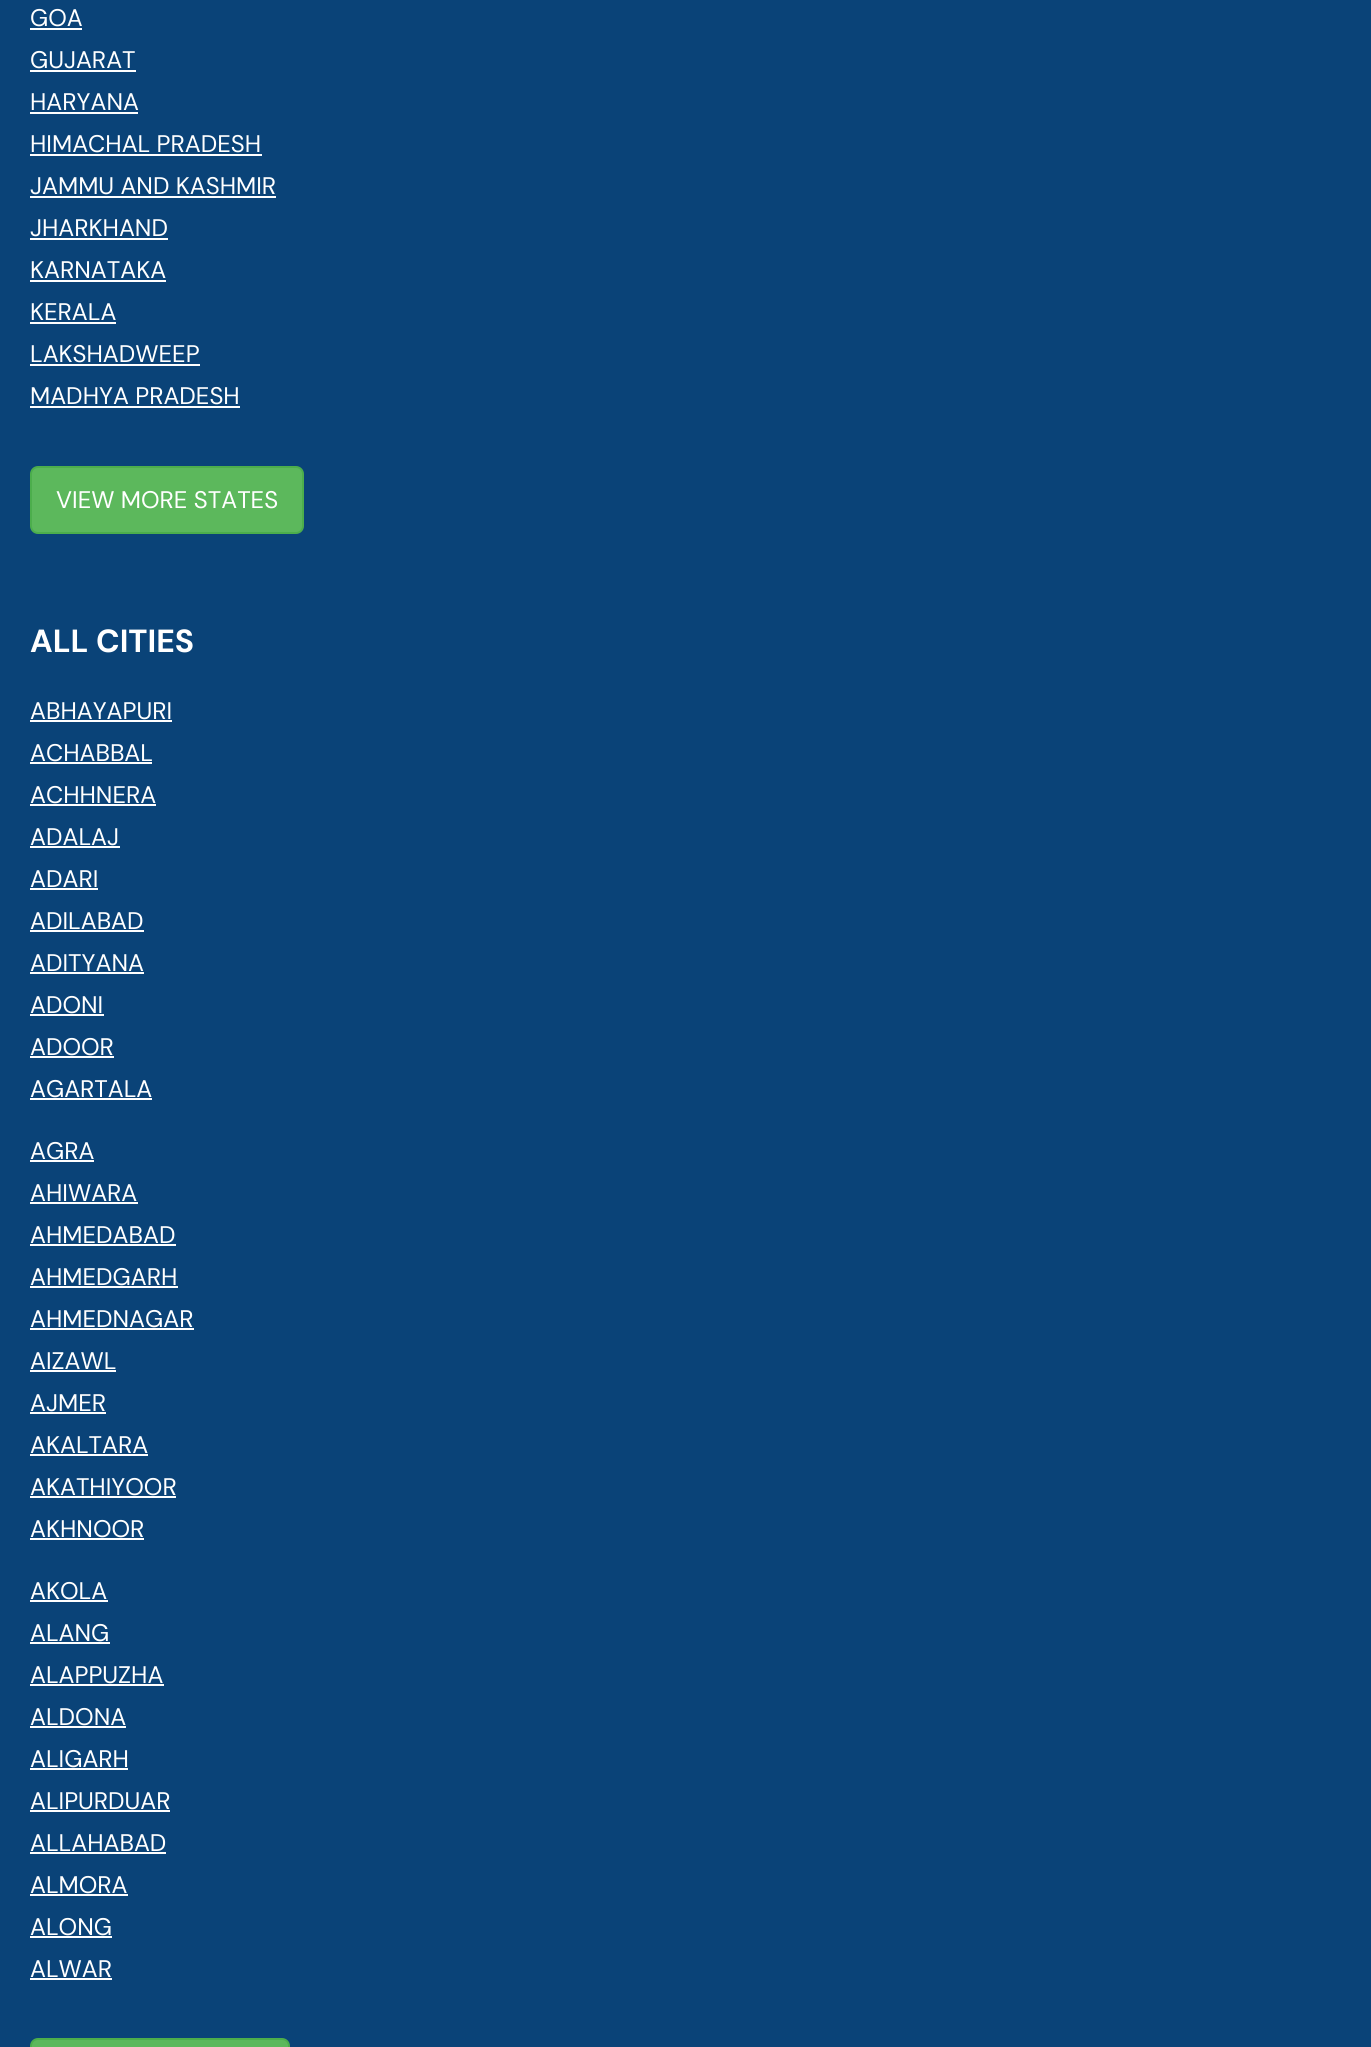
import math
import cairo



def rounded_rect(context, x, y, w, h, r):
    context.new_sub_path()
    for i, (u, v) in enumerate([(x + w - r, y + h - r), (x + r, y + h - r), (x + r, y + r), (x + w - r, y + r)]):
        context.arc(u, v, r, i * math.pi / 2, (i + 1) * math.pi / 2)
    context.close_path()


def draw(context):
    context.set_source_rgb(10 / 255, 67 / 255, 120 / 255)
    context.paint()
    context.set_source_rgb(1, 1, 1)
    context.rectangle(30, 28, 52, 2)
    context.fill()
    context.rectangle(30, 70, 106, 2)
    context.fill()
    context.rectangle(30, 112, 108, 2)
    context.fill()
    context.rectangle(30, 154, 232, 2)
    context.fill()
    context.rectangle(30, 196, 246, 2)
    context.fill()
    context.rectangle(30, 238, 138, 2)
    context.fill()
    context.rectangle(30, 280, 136, 2)
    context.fill()
    context.rectangle(30, 322, 86, 2)
    context.fill()
    context.rectangle(30, 364, 170, 2)
    context.fill()
    context.rectangle(30, 406, 210, 2)
    context.fill()
    context.set_source_rgb(92 / 255, 184 / 255, 92 / 255)
    rounded_rect(context, 31, 467, 272, 66, 7)
    context.fill_preserve()
    context.set_source_rgb(76 / 255, 174 / 255, 76 / 255)
    context.stroke()
    context.set_source_rgb(1, 1, 1)
    context.rectangle(30, 720, 142, 2)
    context.fill()
    context.rectangle(30, 762, 122, 2)
    context.fill()
    context.rectangle(30, 804, 126, 2)
    context.fill()
    context.rectangle(30, 846, 90, 2)
    context.fill()
    context.rectangle(30, 888, 68, 2)
    context.fill()
    context.rectangle(30, 930, 114, 2)
    context.fill()
    context.rectangle(30, 972, 114, 2)
    context.fill()
    context.rectangle(30, 1014, 74, 2)
    context.fill()
    context.rectangle(30, 1056, 84, 2)
    context.fill()
    context.rectangle(30, 1098, 122, 2)
    context.fill()
    context.rectangle(30, 1160, 64, 2)
    context.fill()
    context.rectangle(30, 1202, 108, 2)
    context.fill()
    context.rectangle(30, 1244, 146, 2)
    context.fill()
    context.rectangle(30, 1286, 148, 2)
    context.fill()
    context.rectangle(30, 1328, 164, 2)
    context.fill()
    context.rectangle(30, 1370, 86, 2)
    context.fill()
    context.rectangle(30, 1412, 76, 2)
    context.fill()
    context.rectangle(30, 1454, 118, 2)
    context.fill()
    context.rectangle(30, 1496, 146, 2)
    context.fill()
    context.rectangle(30, 1538, 114, 2)
    context.fill()
    context.rectangle(30, 1600, 78, 2)
    context.fill()
    context.rectangle(30, 1642, 80, 2)
    context.fill()
    context.rectangle(30, 1684, 134, 2)
    context.fill()
    context.rectangle(30, 1726, 96, 2)
    context.fill()
    context.rectangle(30, 1768, 98, 2)
    context.fill()
    context.rectangle(30, 1810, 140, 2)
    context.fill()
    context.rectangle(30, 1852, 136, 2)
    context.fill()
    context.rectangle(30, 1894, 98, 2)
    context.fill()
    context.rectangle(30, 1936, 82, 2)
    context.fill()
    context.rectangle(30, 1978, 82, 2)
    context.fill()
    context.set_source_rgb(92 / 255, 184 / 255, 92 / 255)
    rounded_rect(context, 31, 2039, 258, 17, 7)
    context.fill_preserve()
    context.set_source_rgb(76 / 255, 174 / 255, 76 / 255)
    context.stroke()
    context.select_font_face("DM Sans")
    context.set_font_size(24)
    context.set_source_rgb(1, 1, 1)
    context.move_to(30, 26)
    context.show_text("GOA")
    context.move_to(30, 68)
    context.show_text("GUJARAT")
    context.move_to(30, 110)
    context.show_text("HARYANA")
    context.move_to(30, 152)
    context.show_text("HIMACHAL PRADESH")
    context.move_to(30, 194)
    context.show_text("JAMMU AND KASHMIR")
    context.move_to(30, 236)
    context.show_text("JHARKHAND")
    context.move_to(30, 278)
    context.show_text("KARNATAKA")
    context.move_to(30, 320)
    context.show_text("KERALA")
    context.move_to(30, 362)
    context.show_text("LAKSHADWEEP")
    context.move_to(30, 404)
    context.show_text("MADHYA PRADESH")
    context.move_to(56, 508)
    context.show_text("VIEW MORE STATES")
    context.select_font_face("DM Sans", cairo.FontSlant.NORMAL, cairo.FontWeight.BOLD)
    context.set_font_size(32)
    context.move_to(30, 652)
    context.show_text("ALL CITIES")
    context.select_font_face("DM Sans")
    context.set_font_size(24)
    context.move_to(30, 719)
    context.show_text("ABHAYAPURI")
    context.move_to(30, 761)
    context.show_text("ACHABBAL")
    context.move_to(30, 803)
    context.show_text("ACHHNERA")
    context.move_to(30, 845)
    context.show_text("ADALAJ")
    context.move_to(30, 887)
    context.show_text("ADARI")
    context.move_to(30, 929)
    context.show_text("ADILABAD")
    context.move_to(30, 971)
    context.show_text("ADITYANA")
    context.move_to(30, 1013)
    context.show_text("ADONI")
    context.move_to(30, 1055)
    context.show_text("ADOOR")
    context.move_to(30, 1097)
    context.show_text("AGARTALA")
    context.move_to(30, 1159)
    context.show_text("AGRA")
    context.move_to(30, 1201)
    context.show_text("AHIWARA")
    context.move_to(30, 1243)
    context.show_text("AHMEDABAD")
    context.move_to(30, 1285)
    context.show_text("AHMEDGARH")
    context.move_to(30, 1327)
    context.show_text("AHMEDNAGAR")
    context.move_to(30, 1369)
    context.show_text("AIZAWL")
    context.move_to(30, 1411)
    context.show_text("AJMER")
    context.move_to(30, 1453)
    context.show_text("AKALTARA")
    context.move_to(30, 1495)
    context.show_text("AKATHIYOOR")
    context.move_to(30, 1537)
    context.show_text("AKHNOOR")
    context.move_to(30, 1599)
    context.show_text("AKOLA")
    context.move_to(30, 1641)
    context.show_text("ALANG")
    context.move_to(30, 1683)
    context.show_text("ALAPPUZHA")
    context.move_to(30, 1725)
    context.show_text("ALDONA")
    context.move_to(30, 1767)
    context.show_text("ALIGARH")
    context.move_to(30, 1809)
    context.show_text("ALIPURDUAR")
    context.move_to(30, 1851)
    context.show_text("ALLAHABAD")
    context.move_to(30, 1893)
    context.show_text("ALMORA")
    context.move_to(30, 1935)
    context.show_text("ALONG")
    context.move_to(30, 1977)
    context.show_text("ALWAR")


surface = cairo.ImageSurface(cairo.Format.RGB24, 1371, 2047)
context = cairo.Context(surface)
options = cairo.FontOptions()
options.set_hint_metrics(cairo.HintMetrics.OFF)
options.set_hint_style(cairo.HintStyle.NONE)
context.set_font_options(options)
context.set_miter_limit(4)
draw(context)
surface.write_to_png("out.png")
